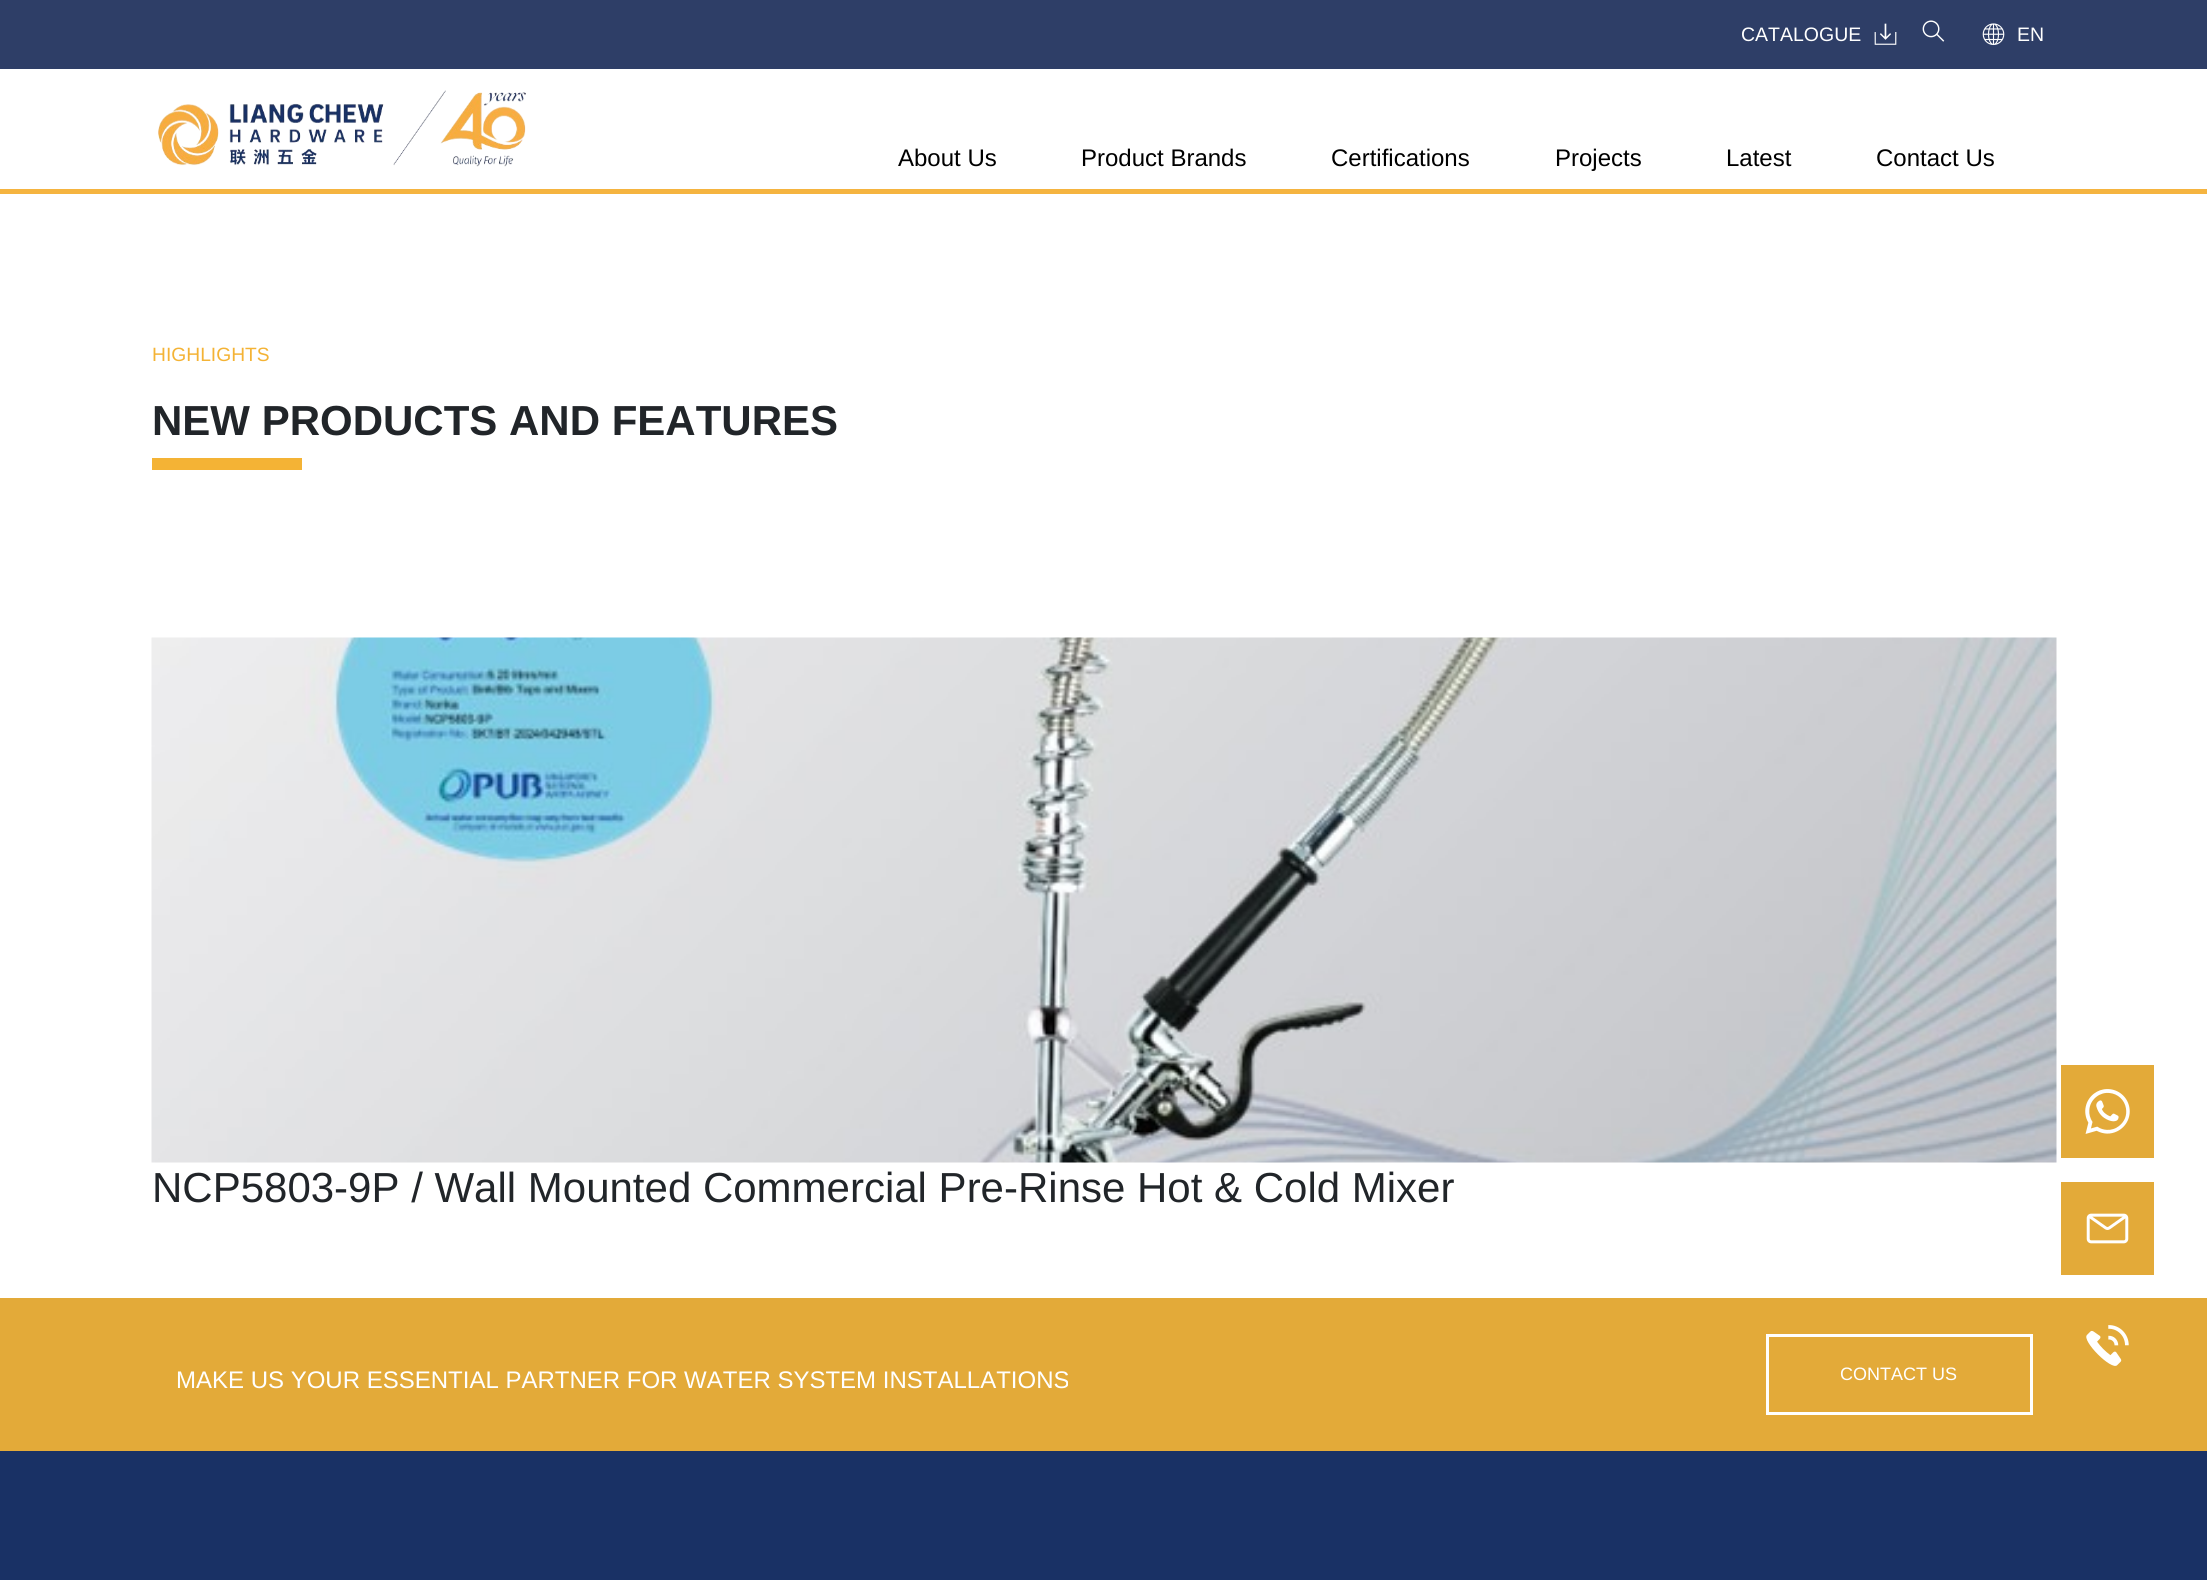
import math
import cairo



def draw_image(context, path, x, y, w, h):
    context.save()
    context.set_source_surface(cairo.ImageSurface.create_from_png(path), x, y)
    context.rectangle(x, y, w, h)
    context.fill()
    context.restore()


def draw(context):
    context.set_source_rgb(1, 1, 1)
    context.paint()
    context.set_source_rgb(245 / 255, 180 / 255, 64 / 255)
    context.rectangle(0, 189, 2207, 5)
    context.fill()
    context.set_source_rgb(46 / 255, 62 / 255, 103 / 255)
    context.rectangle(0, 0, 2207, 69)
    context.fill()
    draw_image(context, "images/1.png", 1874, 23, 23, 22)
    draw_image(context, "images/2.png", 1922, 20, 23, 22)
    draw_image(context, "images/3.png", 1982, 23, 23, 23)
    draw_image(context, "images/4.png", 158, 90, 368, 77)
    context.set_source_rgb(244 / 255, 179 / 255, 53 / 255)
    context.rectangle(152, 458, 150, 12)
    context.fill()
    draw_image(context, "images/5.png", 151, 637, 1906, 526)
    context.set_source_rgb(227 / 255, 170 / 255, 57 / 255)
    context.rectangle(2061, 1065, 93, 93)
    context.fill()
    draw_image(context, "images/6.png", 2085, 1089, 45, 45)
    context.rectangle(2061, 1182, 93, 93)
    context.fill()
    draw_image(context, "images/7.png", 2086, 1213, 43, 31)
    context.rectangle(0, 1298, 2207, 153)
    context.fill()
    draw_image(context, "images/8.png", 2086, 1325, 43, 41)
    context.rectangle(1767.5, 1335.5, 264, 78)
    context.set_source_rgb(1, 1, 1)
    context.set_line_width(3)
    context.stroke()
    context.set_source_rgb(25 / 255, 49 / 255, 101 / 255)
    context.rectangle(0, 1451, 2207, 129)
    context.fill()
    context.select_font_face("Liberation Sans")
    context.set_font_size(19.5)
    context.set_source_rgb(1, 1, 1)
    context.move_to(1741, 41)
    context.show_text("CATALOGUE")
    context.move_to(2017, 41)
    context.show_text("EN")
    context.set_font_size(24)
    context.set_source_rgb(0, 0, 0)
    context.move_to(898, 166)
    context.show_text("About Us")
    context.move_to(1081, 166)
    context.show_text("Product Brands")
    context.move_to(1331, 166)
    context.show_text("Certifications")
    context.move_to(1555, 166)
    context.show_text("Projects")
    context.move_to(1726, 166)
    context.show_text("Latest")
    context.move_to(1876, 166)
    context.show_text("Contact Us")
    context.set_font_size(19.25)
    context.set_source_rgb(244 / 255, 179 / 255, 53 / 255)
    context.move_to(152, 361)
    context.show_text("HIGHLIGHTS")
    context.select_font_face("Liberation Sans", cairo.FontSlant.NORMAL, cairo.FontWeight.BOLD)
    context.set_font_size(42)
    context.set_source_rgb(33 / 255, 37 / 255, 41 / 255)
    context.move_to(152, 435)
    context.show_text("NEW PRODUCTS AND FEATURES")
    context.select_font_face("Liberation Sans")
    context.move_to(152, 1202)
    context.show_text("NCP5803-9P / Wall Mounted Commercial Pre-Rinse Hot & Cold Mixer")
    context.set_font_size(24)
    context.set_source_rgb(1, 1, 1)
    context.move_to(176, 1388)
    context.show_text("MAKE US YOUR ESSENTIAL PARTNER FOR WATER SYSTEM INSTALLATIONS")
    context.set_font_size(18)
    context.move_to(1840, 1380)
    context.show_text("CONTACT US")


surface = cairo.ImageSurface(cairo.Format.RGB24, 2207, 1580)
context = cairo.Context(surface)
options = cairo.FontOptions()
options.set_hint_metrics(cairo.HintMetrics.OFF)
options.set_hint_style(cairo.HintStyle.NONE)
context.set_font_options(options)
context.set_miter_limit(4)
draw(context)
surface.write_to_png("out.png")
